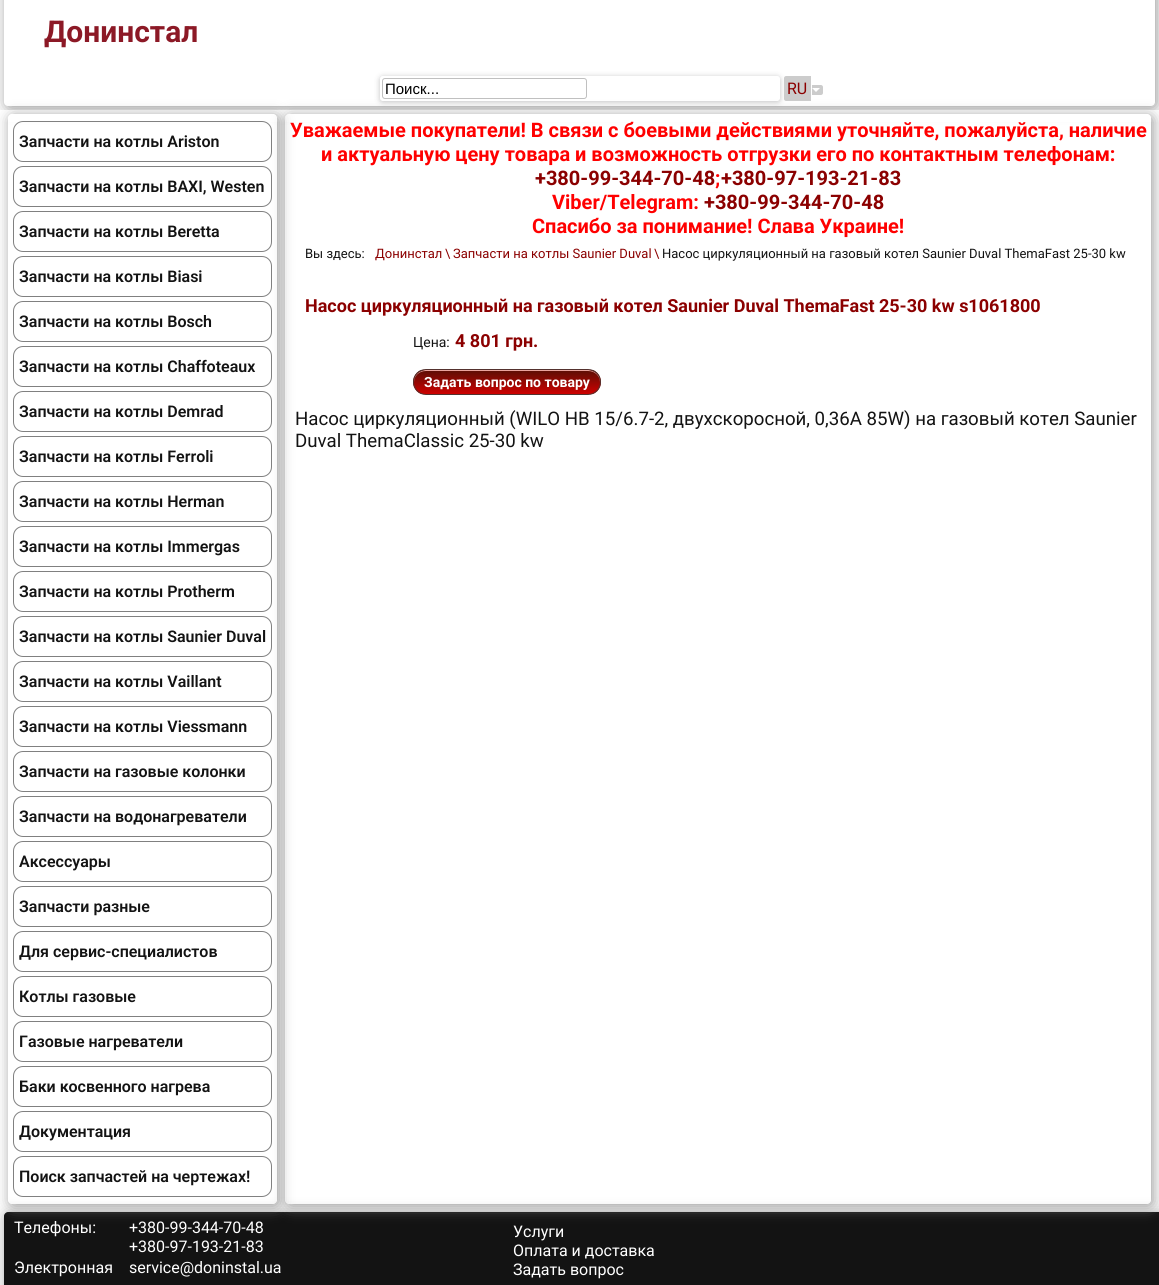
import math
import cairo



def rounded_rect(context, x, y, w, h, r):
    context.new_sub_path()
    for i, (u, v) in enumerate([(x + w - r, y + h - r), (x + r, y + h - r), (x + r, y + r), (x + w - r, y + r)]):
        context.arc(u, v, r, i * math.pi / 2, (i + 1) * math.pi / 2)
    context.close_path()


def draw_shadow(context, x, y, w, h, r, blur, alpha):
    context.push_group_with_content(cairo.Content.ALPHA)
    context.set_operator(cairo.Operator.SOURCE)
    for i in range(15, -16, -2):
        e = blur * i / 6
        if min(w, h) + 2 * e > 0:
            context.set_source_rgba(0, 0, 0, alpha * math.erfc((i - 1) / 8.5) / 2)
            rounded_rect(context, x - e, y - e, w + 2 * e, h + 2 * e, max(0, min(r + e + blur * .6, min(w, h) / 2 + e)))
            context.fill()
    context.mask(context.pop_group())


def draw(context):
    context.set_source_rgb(1, 1, 1)
    context.paint()
    context.set_source_rgb(153 / 255, 153 / 255, 153 / 255)
    draw_shadow(context, 6, -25, 1151, 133, 4, 7, 1)
    context.set_source_rgb(1, 1, 1)
    rounded_rect(context, 4, -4, 1151, 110, 4)
    context.fill()
    context.rectangle(0, 110, 1159, 12)
    context.fill()
    context.save()
    context.set_fill_rule(cairo.FillRule.EVEN_ODD)
    context.new_path()
    context.move_to(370, 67)
    context.line_to(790, 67)
    context.line_to(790, 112)
    context.line_to(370, 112)
    context.close_path()
    context.move_to(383, 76)
    context.line_to(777, 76)
    context.curve_to(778.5, 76, 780, 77.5, 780, 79)
    context.line_to(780, 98)
    context.curve_to(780, 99.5, 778.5, 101, 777, 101)
    context.line_to(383, 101)
    context.curve_to(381.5, 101, 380, 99.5, 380, 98)
    context.line_to(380, 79)
    context.curve_to(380, 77.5, 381.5, 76, 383, 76)
    context.close_path()
    context.clip()
    context.set_source_rgb(32 / 255, 33 / 255, 36 / 255)
    draw_shadow(context, 380, 77, 400, 25, 3, 3, 0.28)
    context.restore()
    rounded_rect(context, 382.5, 78.5, 204, 20, 2.5)
    context.set_source_rgb(192 / 255, 192 / 255, 192 / 255)
    context.set_line_width(1)
    context.stroke()
    context.set_source_rgb(204 / 255, 204 / 255, 204 / 255)
    context.new_path()
    context.move_to(786, 76)
    context.line_to(811, 76)
    context.line_to(811, 101)
    context.line_to(786, 101)
    context.curve_to(785, 101, 784, 100, 784, 99)
    context.line_to(784, 78)
    context.curve_to(784, 77, 785, 76, 786, 76)
    context.close_path()
    context.fill()
    context.new_path()
    context.move_to(812, 85)
    context.line_to(821, 85)
    context.curve_to(822, 85, 823, 86, 823, 87)
    context.line_to(823, 93)
    context.curve_to(823, 94, 822, 95, 821, 95)
    context.line_to(812, 95)
    context.close_path()
    context.fill()
    context.set_source_rgb(1, 1, 1)
    context.new_path()
    context.move_to(812, 88)
    context.line_to(820, 88)
    context.line_to(816, 92)
    context.close_path()
    context.fill()
    context.set_source_rgb(153 / 255, 153 / 255, 153 / 255)
    draw_shadow(context, 6, 1214, 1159, 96, 4, 7, 1)
    context.set_source_rgb(19 / 255, 19 / 255, 19 / 255)
    context.new_path()
    context.move_to(8, 1212)
    context.line_to(1159, 1212)
    context.line_to(1159, 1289)
    context.line_to(8, 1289)
    context.curve_to(6, 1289, 4, 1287, 4, 1285)
    context.line_to(4, 1216)
    context.curve_to(4, 1214, 6, 1212, 8, 1212)
    context.close_path()
    context.fill()
    context.save()
    context.set_fill_rule(cairo.FillRule.EVEN_ODD)
    context.new_path()
    context.move_to(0, 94)
    context.line_to(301, 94)
    context.line_to(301, 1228)
    context.line_to(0, 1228)
    context.close_path()
    context.move_to(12, 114)
    context.line_to(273, 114)
    context.curve_to(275, 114, 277, 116, 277, 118)
    context.line_to(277, 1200)
    context.curve_to(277, 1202, 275, 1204, 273, 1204)
    context.line_to(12, 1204)
    context.curve_to(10, 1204, 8, 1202, 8, 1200)
    context.line_to(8, 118)
    context.curve_to(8, 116, 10, 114, 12, 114)
    context.close_path()
    context.clip()
    context.set_source_rgb(153 / 255, 153 / 255, 153 / 255)
    draw_shadow(context, 10, 116, 269, 1090, 4, 7, 1)
    context.restore()
    rounded_rect(context, 13.5, 121.5, 258, 40, 9.5)
    context.set_source_rgb(128 / 255, 128 / 255, 128 / 255)
    context.stroke()
    rounded_rect(context, 13.5, 166.5, 258, 40, 9.5)
    context.stroke()
    rounded_rect(context, 13.5, 211.5, 258, 40, 9.5)
    context.stroke()
    rounded_rect(context, 13.5, 256.5, 258, 40, 9.5)
    context.stroke()
    rounded_rect(context, 13.5, 301.5, 258, 40, 9.5)
    context.stroke()
    rounded_rect(context, 13.5, 346.5, 258, 40, 9.5)
    context.stroke()
    rounded_rect(context, 13.5, 391.5, 258, 40, 9.5)
    context.stroke()
    rounded_rect(context, 13.5, 436.5, 258, 40, 9.5)
    context.stroke()
    rounded_rect(context, 13.5, 481.5, 258, 40, 9.5)
    context.stroke()
    rounded_rect(context, 13.5, 526.5, 258, 40, 9.5)
    context.stroke()
    rounded_rect(context, 13.5, 571.5, 258, 40, 9.5)
    context.stroke()
    rounded_rect(context, 13.5, 616.5, 258, 40, 9.5)
    context.stroke()
    rounded_rect(context, 13.5, 661.5, 258, 40, 9.5)
    context.stroke()
    rounded_rect(context, 13.5, 706.5, 258, 40, 9.5)
    context.stroke()
    rounded_rect(context, 13.5, 751.5, 258, 40, 9.5)
    context.stroke()
    rounded_rect(context, 13.5, 796.5, 258, 40, 9.5)
    context.stroke()
    rounded_rect(context, 13.5, 841.5, 258, 40, 9.5)
    context.stroke()
    rounded_rect(context, 13.5, 886.5, 258, 40, 9.5)
    context.stroke()
    rounded_rect(context, 13.5, 931.5, 258, 40, 9.5)
    context.stroke()
    rounded_rect(context, 13.5, 976.5, 258, 40, 9.5)
    context.stroke()
    rounded_rect(context, 13.5, 1021.5, 258, 40, 9.5)
    context.stroke()
    rounded_rect(context, 13.5, 1066.5, 258, 40, 9.5)
    context.stroke()
    rounded_rect(context, 13.5, 1111.5, 258, 40, 9.5)
    context.stroke()
    rounded_rect(context, 13.5, 1156.5, 258, 40, 9.5)
    context.stroke()
    context.save()
    context.set_fill_rule(cairo.FillRule.EVEN_ODD)
    context.new_path()
    context.move_to(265, 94)
    context.line_to(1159, 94)
    context.line_to(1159, 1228)
    context.line_to(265, 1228)
    context.close_path()
    context.move_to(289, 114)
    context.line_to(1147, 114)
    context.curve_to(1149, 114, 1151, 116, 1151, 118)
    context.line_to(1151, 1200)
    context.curve_to(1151, 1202, 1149, 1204, 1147, 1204)
    context.line_to(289, 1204)
    context.curve_to(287, 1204, 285, 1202, 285, 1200)
    context.line_to(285, 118)
    context.curve_to(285, 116, 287, 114, 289, 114)
    context.close_path()
    context.clip()
    context.set_source_rgb(153 / 255, 153 / 255, 153 / 255)
    draw_shadow(context, 287, 116, 866, 1090, 4, 7, 1)
    context.restore()
    context.save()
    rounded_rect(context, 413, 369, 188, 26, 13)
    context.clip()
    gradient = cairo.LinearGradient(414, 370, 414, 394)
    gradient.add_color_stop_rgba(0.05, 97 / 255, 14 / 255, 5 / 255, 1)
    gradient.add_color_stop_rgba(1, 206 / 255, 1 / 255, 0, 1)
    context.set_source(gradient)
    context.rectangle(413, 370, 188, 24)
    context.fill()
    context.restore()
    context.set_source_rgb(235 / 255, 164 / 255, 158 / 255)
    context.new_path()
    context.move_to(426, 371)
    context.line_to(588, 371)
    context.curve_to(595, 371, 600, 376, 600, 382)
    context.curve_to(601, 364, 569, 370, 561, 370)
    context.line_to(453, 370)
    context.curve_to(445, 370, 413, 364, 414, 382)
    context.curve_to(414, 376, 419, 371, 426, 371)
    context.close_path()
    context.fill()
    rounded_rect(context, 413.5, 369.5, 187, 25, 12.5)
    context.set_source_rgb(84 / 255, 49 / 255, 46 / 255)
    context.stroke()
    context.select_font_face("Roboto", cairo.FontSlant.NORMAL, cairo.FontWeight.BOLD)
    context.set_font_size(30)
    context.set_source_rgb(140 / 255, 25 / 255, 38 / 255)
    context.move_to(44, 42)
    context.show_text("Донинстал")
    context.select_font_face("Liberation Sans")
    context.set_font_size(15)
    context.set_source_rgb(0, 0, 0)
    context.move_to(385, 94)
    context.show_text("Поиск...")
    context.select_font_face("Roboto")
    context.set_font_size(16)
    context.set_source_rgb(139 / 255, 0, 0)
    context.move_to(787, 94)
    context.show_text("RU")
    context.select_font_face("Roboto SemiBold")
    context.set_source_rgb(19 / 255, 19 / 255, 19 / 255)
    context.move_to(19, 147)
    context.show_text("Запчасти на котлы Ariston")
    context.move_to(19, 192)
    context.show_text("Запчасти на котлы BAXI, Westen")
    context.move_to(19, 237)
    context.show_text("Запчасти на котлы Beretta")
    context.move_to(19, 282)
    context.show_text("Запчасти на котлы Biasi")
    context.move_to(19, 327)
    context.show_text("Запчасти на котлы Bosch")
    context.move_to(19, 372)
    context.show_text("Запчасти на котлы Chaffoteaux")
    context.move_to(19, 417)
    context.show_text("Запчасти на котлы Demrad")
    context.move_to(19, 462)
    context.show_text("Запчасти на котлы Ferroli")
    context.move_to(19, 507)
    context.show_text("Запчасти на котлы Herman")
    context.move_to(19, 552)
    context.show_text("Запчасти на котлы Immergas")
    context.move_to(19, 597)
    context.show_text("Запчасти на котлы Protherm")
    context.move_to(19, 642)
    context.show_text("Запчасти на котлы Saunier Duval")
    context.move_to(19, 687)
    context.show_text("Запчасти на котлы Vaillant")
    context.move_to(19, 732)
    context.show_text("Запчасти на котлы Viessmann")
    context.move_to(19, 777)
    context.show_text("Запчасти на газовые колонки")
    context.move_to(19, 822)
    context.show_text("Запчасти на водонагреватели")
    context.move_to(19, 867)
    context.show_text("Аксессуары")
    context.move_to(19, 912)
    context.show_text("Запчасти разные")
    context.move_to(19, 957)
    context.show_text("Для сервис-специалистов")
    context.move_to(19, 1002)
    context.show_text("Котлы газовые")
    context.move_to(19, 1047)
    context.show_text("Газовые нагреватели")
    context.move_to(19, 1092)
    context.show_text("Баки косвенного нагрева")
    context.move_to(19, 1137)
    context.show_text("Документация")
    context.move_to(19, 1182)
    context.show_text("Поиск запчастей на чертежах!")
    context.select_font_face("Roboto", cairo.FontSlant.NORMAL, cairo.FontWeight.BOLD)
    context.set_font_size(20)
    context.set_source_rgb(1, 0, 0)
    context.move_to(290, 137)
    context.show_text("Уважаемые покупатели! В связи с боевыми действиями уточняйте, пожалуйста, наличие")
    context.move_to(321, 161)
    context.show_text("и актуальную цену товара и возможность отгрузки его по контактным телефонам:")
    context.set_source_rgb(139 / 255, 0, 0)
    context.move_to(535, 185)
    context.show_text("+380-99-344-70-48")
    context.set_source_rgb(1, 0, 0)
    context.move_to(715, 185)
    context.show_text(";")
    context.set_source_rgb(139 / 255, 0, 0)
    context.move_to(721, 185)
    context.show_text("+380-97-193-21-83")
    context.set_source_rgb(1, 0, 0)
    context.move_to(552, 209)
    context.show_text("Viber/Telegram:")
    context.set_source_rgb(139 / 255, 0, 0)
    context.move_to(704, 209)
    context.show_text("+380-99-344-70-48")
    context.set_source_rgb(1, 0, 0)
    context.move_to(532, 233)
    context.show_text("Спасибо за понимание! Слава Украине!")
    context.select_font_face("Roboto")
    context.set_font_size(13)
    context.set_source_rgb(19 / 255, 19 / 255, 19 / 255)
    context.move_to(305, 258)
    context.show_text("Вы здесь:")
    context.set_source_rgb(139 / 255, 0, 0)
    context.move_to(375, 258)
    context.show_text("Донинстал")
    context.move_to(445, 258)
    context.show_text("\\")
    context.move_to(453, 258)
    context.show_text("Запчасти на котлы Saunier Duval")
    context.move_to(654, 258)
    context.show_text("\\")
    context.set_source_rgb(19 / 255, 19 / 255, 19 / 255)
    context.move_to(662, 258)
    context.show_text("Насос циркуляционный на газовый котел Saunier Duval ThemaFast 25-30 kw")
    context.select_font_face("Roboto", cairo.FontSlant.NORMAL, cairo.FontWeight.BOLD)
    context.set_font_size(18)
    context.set_source_rgb(139 / 255, 0, 0)
    context.move_to(305, 312)
    context.show_text("Насос циркуляционный на газовый котел Saunier Duval ThemaFast 25-30 kw s1061800")
    context.select_font_face("Roboto")
    context.set_font_size(14)
    context.set_source_rgb(19 / 255, 19 / 255, 19 / 255)
    context.move_to(413, 347)
    context.show_text("Цена:")
    context.select_font_face("Roboto", cairo.FontSlant.NORMAL, cairo.FontWeight.BOLD)
    context.set_font_size(18)
    context.set_source_rgb(139 / 255, 0, 0)
    context.move_to(455, 347)
    context.show_text("4 801 грн.")
    context.set_font_size(14)
    context.set_source_rgb(1, 1, 1)
    context.move_to(424, 387)
    context.show_text("Задать вопрос по товару")
    context.select_font_face("Roboto")
    context.set_font_size(18.65)
    context.set_source_rgb(19 / 255, 19 / 255, 19 / 255)
    context.move_to(295, 425)
    context.show_text("Насос циркуляционный (WILO HB 15/6.7-2, двухскоросной, 0,36A 85W) на газовый котел Saunier")
    context.move_to(295, 447)
    context.show_text("Duval ThemaClassic 25-30 kw")
    context.set_font_size(16)
    context.set_source_rgb(1, 1, 1)
    context.move_to(14, 1233)
    context.show_text("Телефоны:")
    context.move_to(129, 1233)
    context.show_text("+380-99-344-70-48")
    context.move_to(129, 1252)
    context.show_text("+380-97-193-21-83")
    context.move_to(14, 1273)
    context.show_text("Электронная")
    context.move_to(129, 1273)
    context.show_text("service@doninstal.ua")
    context.move_to(513, 1237)
    context.show_text("Услуги")
    context.move_to(513, 1256)
    context.show_text("Оплата и доставка")
    context.move_to(513, 1275)
    context.show_text("Задать вопрос")


surface = cairo.ImageSurface(cairo.Format.RGB24, 1159, 1285)
context = cairo.Context(surface)
options = cairo.FontOptions()
options.set_hint_metrics(cairo.HintMetrics.OFF)
options.set_hint_style(cairo.HintStyle.NONE)
context.set_font_options(options)
context.set_miter_limit(4)
draw(context)
surface.write_to_png("out.png")
